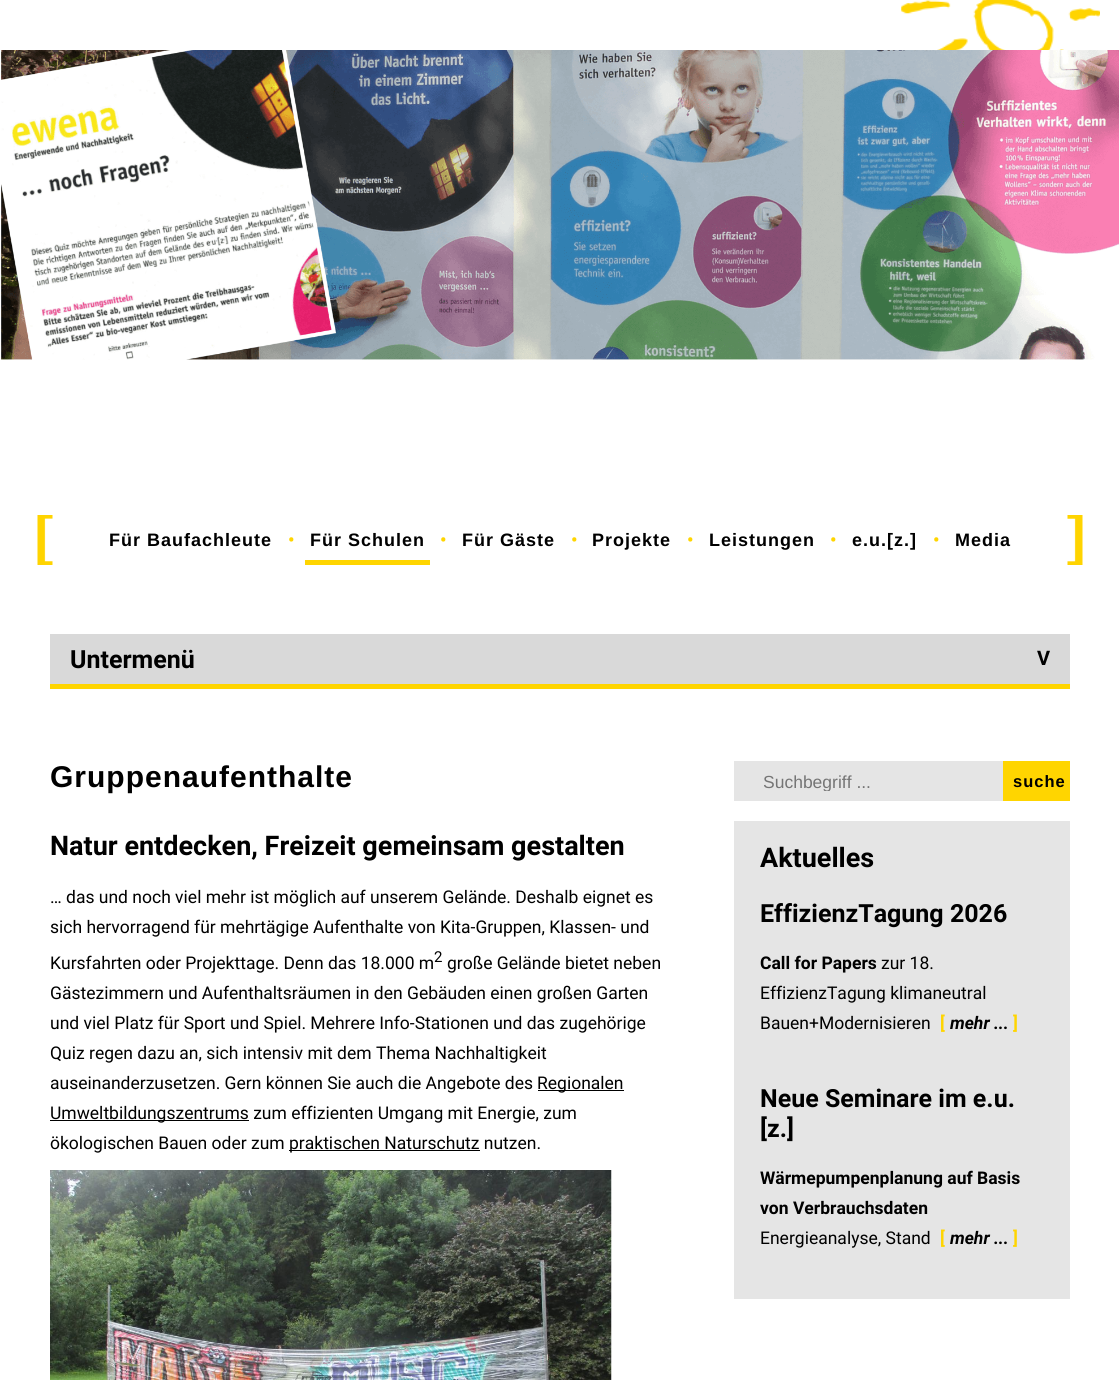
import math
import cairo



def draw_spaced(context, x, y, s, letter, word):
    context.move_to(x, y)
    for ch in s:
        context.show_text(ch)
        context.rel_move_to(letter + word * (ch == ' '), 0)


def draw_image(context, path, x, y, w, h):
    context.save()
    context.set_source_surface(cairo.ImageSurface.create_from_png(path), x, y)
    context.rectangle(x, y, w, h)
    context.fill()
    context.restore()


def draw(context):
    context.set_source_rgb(1, 1, 1)
    context.paint()
    draw_image(context, "images/1.png", 901, 0, 199, 50)
    draw_image(context, "images/2.png", 1, 50, 1118, 310)
    draw_image(context, "images/3.png", 37, 515, 16, 50)
    context.set_source_rgb(1, 213 / 255, 0)
    context.rectangle(305, 560, 125, 5)
    context.fill()
    draw_image(context, "images/4.png", 1067, 515, 16, 50)
    context.set_source_rgb(217 / 255, 217 / 255, 217 / 255)
    context.rectangle(50, 634, 1020, 50)
    context.fill()
    context.set_source_rgb(1, 213 / 255, 0)
    context.rectangle(50, 684, 1020, 5)
    context.fill()
    context.set_source_rgb(0, 0, 0)
    context.rectangle(538, 1090, 86, 1)
    context.fill()
    context.rectangle(50, 1120, 199, 1)
    context.fill()
    context.rectangle(289, 1150, 191, 1)
    context.fill()
    draw_image(context, "images/5.png", 50, 1170, 562, 210)
    context.set_source_rgb(229 / 255, 229 / 255, 229 / 255)
    context.rectangle(734, 761, 269, 40)
    context.fill()
    context.set_source_rgb(1, 213 / 255, 0)
    context.rectangle(1003, 761, 67, 40)
    context.fill()
    context.set_source_rgb(229 / 255, 229 / 255, 229 / 255)
    context.rectangle(734, 821, 336, 478)
    context.fill()
    context.select_font_face("Liberation Sans", cairo.FontSlant.NORMAL, cairo.FontWeight.BOLD)
    context.set_font_size(18)
    context.set_source_rgb(0, 0, 0)
    draw_spaced(context, 109, 546, "Für Baufachleute", 1, 0)
    context.select_font_face("Roboto", cairo.FontSlant.NORMAL, cairo.FontWeight.BOLD)
    context.set_source_rgb(1, 213 / 255, 0)
    context.move_to(288, 546)
    context.show_text("•")
    context.select_font_face("Liberation Sans", cairo.FontSlant.NORMAL, cairo.FontWeight.BOLD)
    context.set_source_rgb(0, 0, 0)
    draw_spaced(context, 310, 546, "Für Schulen", 1, 0)
    context.select_font_face("Roboto", cairo.FontSlant.NORMAL, cairo.FontWeight.BOLD)
    context.set_source_rgb(1, 213 / 255, 0)
    context.move_to(440, 546)
    context.show_text("•")
    context.select_font_face("Liberation Sans", cairo.FontSlant.NORMAL, cairo.FontWeight.BOLD)
    context.set_source_rgb(0, 0, 0)
    draw_spaced(context, 462, 546, "Für Gäste", 1, 0)
    context.select_font_face("Roboto", cairo.FontSlant.NORMAL, cairo.FontWeight.BOLD)
    context.set_source_rgb(1, 213 / 255, 0)
    context.move_to(571, 546)
    context.show_text("•")
    context.select_font_face("Liberation Sans", cairo.FontSlant.NORMAL, cairo.FontWeight.BOLD)
    context.set_source_rgb(0, 0, 0)
    draw_spaced(context, 592, 546, "Projekte", 1, 0)
    context.select_font_face("Roboto", cairo.FontSlant.NORMAL, cairo.FontWeight.BOLD)
    context.set_source_rgb(1, 213 / 255, 0)
    context.move_to(687, 546)
    context.show_text("•")
    context.select_font_face("Liberation Sans", cairo.FontSlant.NORMAL, cairo.FontWeight.BOLD)
    context.set_source_rgb(0, 0, 0)
    draw_spaced(context, 709, 546, "Leistungen", 1, 0)
    context.select_font_face("Roboto", cairo.FontSlant.NORMAL, cairo.FontWeight.BOLD)
    context.set_source_rgb(1, 213 / 255, 0)
    context.move_to(830, 546)
    context.show_text("•")
    context.select_font_face("Liberation Sans", cairo.FontSlant.NORMAL, cairo.FontWeight.BOLD)
    context.set_source_rgb(0, 0, 0)
    draw_spaced(context, 852, 546, "e.u.[z.]", 1, 0)
    context.select_font_face("Roboto", cairo.FontSlant.NORMAL, cairo.FontWeight.BOLD)
    context.set_source_rgb(1, 213 / 255, 0)
    context.move_to(933, 546)
    context.show_text("•")
    context.select_font_face("Liberation Sans", cairo.FontSlant.NORMAL, cairo.FontWeight.BOLD)
    context.set_source_rgb(0, 0, 0)
    draw_spaced(context, 955, 546, "Media", 1, 0)
    context.select_font_face("Roboto", cairo.FontSlant.NORMAL, cairo.FontWeight.BOLD)
    context.set_font_size(25)
    context.move_to(70, 668)
    context.show_text("Untermenü")
    context.set_font_size(20)
    context.move_to(1037, 665)
    context.show_text("V")
    context.select_font_face("Liberation Sans", cairo.FontSlant.NORMAL, cairo.FontWeight.BOLD)
    context.set_font_size(30)
    draw_spaced(context, 50, 787, "Gruppenaufenthalte", 1, 0)
    context.select_font_face("Roboto", cairo.FontSlant.NORMAL, cairo.FontWeight.BOLD)
    context.set_font_size(27)
    context.move_to(50, 855)
    context.show_text("Natur entdecken, Freizeit gemeinsam gestalten")
    context.select_font_face("Roboto")
    context.set_font_size(17.5)
    context.move_to(50, 903)
    context.show_text("… das und noch viel mehr ist möglich auf unserem Gelände. Deshalb eignet es")
    context.move_to(50, 933)
    context.show_text("sich hervorragend für mehrtägige Aufenthalte von Kita-Gruppen, Klassen- und")
    context.move_to(50, 969)
    context.show_text("Kursfahrten oder Projekttage. Denn das 18.000 m")
    context.set_font_size(15)
    context.move_to(434, 962)
    context.show_text("2")
    context.set_font_size(17.5)
    context.move_to(447, 969)
    context.show_text("große Gelände bietet neben")
    context.move_to(50, 999)
    context.show_text("Gästezimmern und Aufenthaltsräumen in den Gebäuden einen großen Garten")
    context.move_to(50, 1029)
    context.show_text("und viel Platz für Sport und Spiel. Mehrere Info-Stationen und das zugehörige")
    context.move_to(50, 1059)
    context.show_text("Quiz regen dazu an, sich intensiv mit dem Thema Nachhaltigkeit")
    context.move_to(50, 1089)
    context.show_text("auseinanderzusetzen. Gern können Sie auch die Angebote des")
    context.move_to(537, 1089)
    context.show_text("Regionalen")
    context.move_to(50, 1119)
    context.show_text("Umweltbildungszentrums zum effizienten Umgang mit Energie, zum")
    context.move_to(50, 1149)
    context.show_text("ökologischen Bauen oder zum")
    context.move_to(289, 1149)
    context.show_text("praktischen Naturschutz nutzen.")
    context.save()
    context.rectangle(764, 771, 212, 20)
    context.clip()
    context.select_font_face("Liberation Sans")
    context.set_source_rgb(117 / 255, 117 / 255, 117 / 255)
    context.move_to(763, 788)
    context.show_text("Suchbegriff ...")
    context.restore()
    context.select_font_face("Liberation Sans", cairo.FontSlant.NORMAL, cairo.FontWeight.BOLD)
    context.set_font_size(16.5)
    draw_spaced(context, 1013, 787, "suche", 1, 0)
    context.select_font_face("Roboto", cairo.FontSlant.NORMAL, cairo.FontWeight.BOLD)
    context.set_font_size(27)
    context.move_to(760, 867)
    context.show_text("Aktuelles")
    context.set_font_size(25)
    context.move_to(760, 922)
    context.show_text("EffizienzTagung 2026")
    context.set_font_size(17.5)
    context.move_to(760, 969)
    context.show_text("Call for Papers")
    context.select_font_face("Roboto")
    context.move_to(881, 969)
    context.show_text("zur 18.")
    context.move_to(760, 999)
    context.show_text("EffizienzTagung klimaneutral")
    context.move_to(760, 1029)
    context.show_text("Bauen+Modernisieren")
    context.select_font_face("Roboto", cairo.FontSlant.NORMAL, cairo.FontWeight.BOLD)
    context.set_source_rgb(1, 213 / 255, 0)
    context.move_to(940, 1029)
    context.show_text("[")
    context.select_font_face("Roboto", cairo.FontSlant.ITALIC, cairo.FontWeight.BOLD)
    context.set_source_rgb(0, 0, 0)
    context.move_to(950, 1029)
    context.show_text("mehr ...")
    context.select_font_face("Roboto", cairo.FontSlant.NORMAL, cairo.FontWeight.BOLD)
    context.set_source_rgb(1, 213 / 255, 0)
    context.move_to(1013, 1029)
    context.show_text("]")
    context.set_font_size(25)
    context.set_source_rgb(0, 0, 0)
    context.move_to(760, 1107)
    context.show_text("Neue Seminare im e.u.")
    context.move_to(760, 1137)
    context.show_text("[z.]")
    context.set_font_size(17.5)
    context.move_to(760, 1184)
    context.show_text("Wärmepumpenplanung auf Basis")
    context.move_to(760, 1214)
    context.show_text("von Verbrauchsdaten")
    context.select_font_face("Roboto")
    context.move_to(760, 1244)
    context.show_text("Energieanalyse, Stand")
    context.select_font_face("Roboto", cairo.FontSlant.NORMAL, cairo.FontWeight.BOLD)
    context.set_source_rgb(1, 213 / 255, 0)
    context.move_to(940, 1244)
    context.show_text("[")
    context.select_font_face("Roboto", cairo.FontSlant.ITALIC, cairo.FontWeight.BOLD)
    context.set_source_rgb(0, 0, 0)
    context.move_to(950, 1244)
    context.show_text("mehr ...")
    context.select_font_face("Roboto", cairo.FontSlant.NORMAL, cairo.FontWeight.BOLD)
    context.set_source_rgb(1, 213 / 255, 0)
    context.move_to(1013, 1244)
    context.show_text("]")


surface = cairo.ImageSurface(cairo.Format.RGB24, 1119, 1380)
context = cairo.Context(surface)
options = cairo.FontOptions()
options.set_hint_metrics(cairo.HintMetrics.OFF)
options.set_hint_style(cairo.HintStyle.NONE)
context.set_font_options(options)
context.set_miter_limit(4)
draw(context)
surface.write_to_png("out.png")
